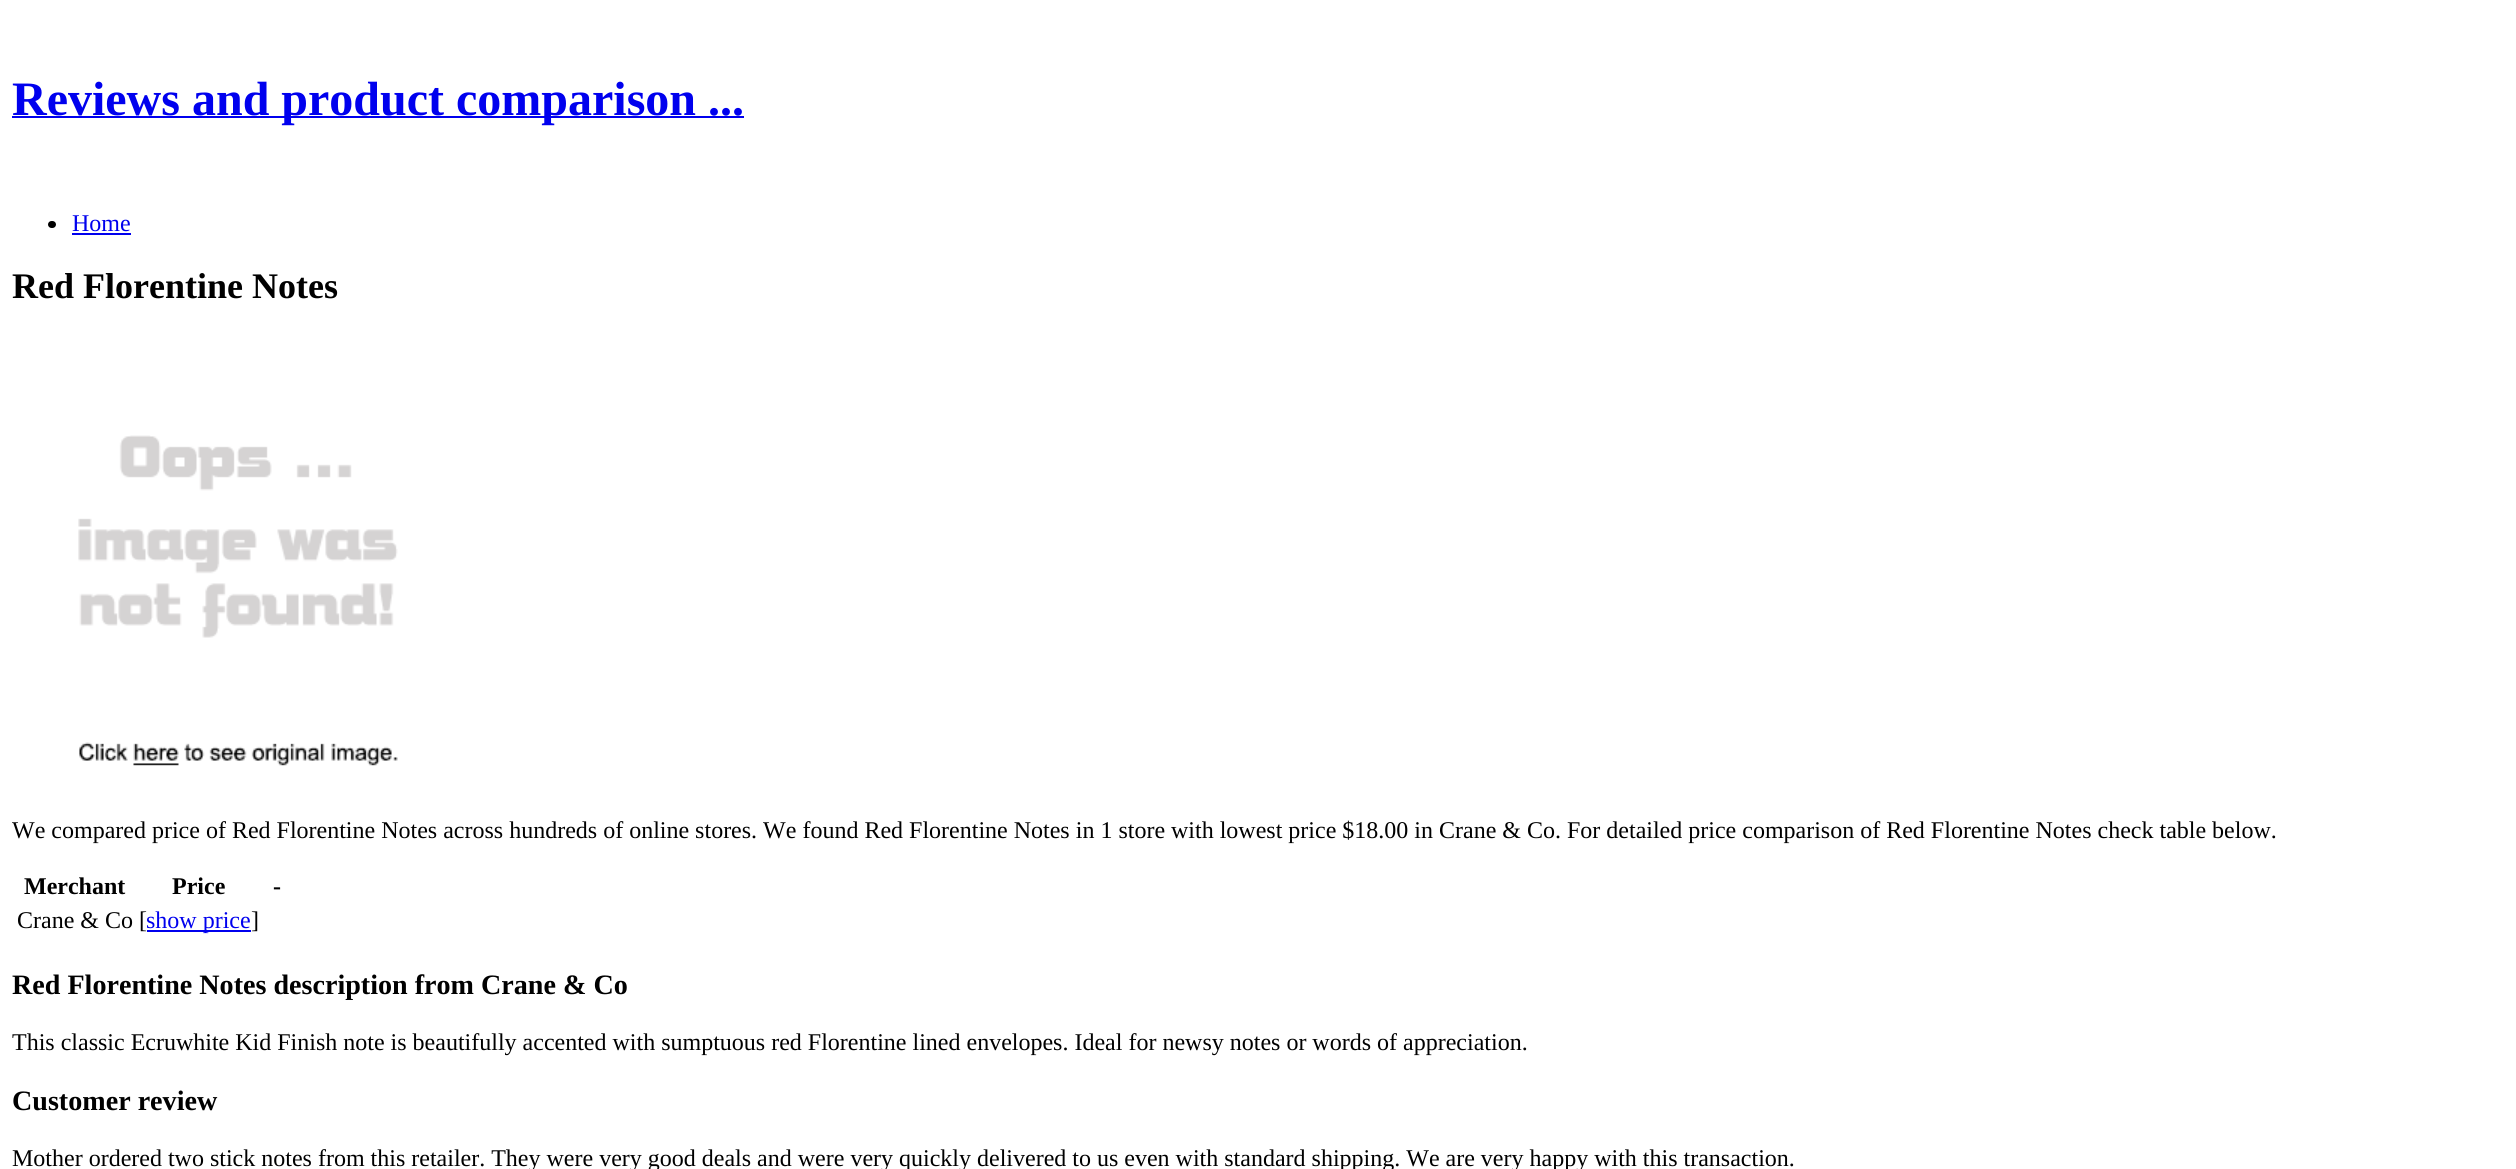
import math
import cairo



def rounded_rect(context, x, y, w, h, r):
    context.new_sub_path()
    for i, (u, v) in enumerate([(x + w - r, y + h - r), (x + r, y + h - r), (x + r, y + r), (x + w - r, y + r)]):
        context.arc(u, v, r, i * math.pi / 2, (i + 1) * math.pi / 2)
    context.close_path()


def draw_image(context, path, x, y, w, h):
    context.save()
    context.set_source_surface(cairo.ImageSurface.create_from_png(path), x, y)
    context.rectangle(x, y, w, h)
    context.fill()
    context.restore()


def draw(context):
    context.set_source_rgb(1, 1, 1)
    context.paint()
    context.set_source_rgb(0, 0, 238 / 255)
    context.rectangle(12, 116, 732, 2)
    context.fill()
    context.set_source_rgb(0, 0, 0)
    rounded_rect(context, 48, 221, 8, 7, 3.5)
    context.fill()
    context.set_source_rgb(0, 0, 238 / 255)
    context.rectangle(72, 233, 59, 2)
    context.fill()
    draw_image(context, "images/1.png", 78, 435, 320, 331)
    context.rectangle(147, 930, 104, 2)
    context.fill()
    context.select_font_face("Liberation Serif", cairo.FontSlant.NORMAL, cairo.FontWeight.BOLD)
    context.set_font_size(48)
    context.move_to(12, 115)
    context.show_text("Reviews and product comparison ...")
    context.select_font_face("Liberation Serif")
    context.set_font_size(24)
    context.move_to(72, 231)
    context.show_text("Home")
    context.select_font_face("Liberation Serif", cairo.FontSlant.NORMAL, cairo.FontWeight.BOLD)
    context.set_font_size(36)
    context.set_source_rgb(0, 0, 0)
    context.move_to(12, 298)
    context.show_text("Red Florentine Notes")
    context.select_font_face("Liberation Serif")
    context.set_font_size(24)
    context.move_to(12, 838)
    context.show_text("We compared price of Red Florentine Notes across hundreds of online stores. We found Red Florentine Notes in 1 store with lowest price $18.00 in Crane & Co. For detailed price comparison of Red Florentine Notes check table below.")
    context.select_font_face("Liberation Serif", cairo.FontSlant.NORMAL, cairo.FontWeight.BOLD)
    context.move_to(24, 894)
    context.show_text("Merchant")
    context.move_to(172, 894)
    context.show_text("Price")
    context.move_to(273, 894)
    context.show_text("-")
    context.select_font_face("Liberation Serif")
    context.move_to(17, 928)
    context.show_text("Crane & Co [")
    context.set_source_rgb(0, 0, 238 / 255)
    context.move_to(146, 928)
    context.show_text("show price")
    context.set_source_rgb(0, 0, 0)
    context.move_to(251, 928)
    context.show_text("]")
    context.select_font_face("Liberation Serif", cairo.FontSlant.NORMAL, cairo.FontWeight.BOLD)
    context.set_font_size(28.1)
    context.move_to(12, 994)
    context.show_text("Red Florentine Notes description from Crane & Co")
    context.select_font_face("Liberation Serif")
    context.set_font_size(24)
    context.move_to(12, 1050)
    context.show_text("This classic Ecruwhite Kid Finish note is beautifully accented with sumptuous red Florentine lined envelopes. Ideal for newsy notes or words of appreciation.")
    context.select_font_face("Liberation Serif", cairo.FontSlant.NORMAL, cairo.FontWeight.BOLD)
    context.set_font_size(28.1)
    context.move_to(12, 1110)
    context.show_text("Customer review")
    context.select_font_face("Liberation Serif")
    context.set_font_size(24)
    context.move_to(12, 1166)
    context.show_text("Mother ordered two stick notes from this retailer. They were very good deals and were very quickly delivered to us even with standard shipping. We are very happy with this transaction.")


surface = cairo.ImageSurface(cairo.Format.RGB24, 2516, 1169)
context = cairo.Context(surface)
options = cairo.FontOptions()
options.set_hint_metrics(cairo.HintMetrics.OFF)
options.set_hint_style(cairo.HintStyle.NONE)
context.set_font_options(options)
context.set_miter_limit(4)
draw(context)
surface.write_to_png("out.png")
